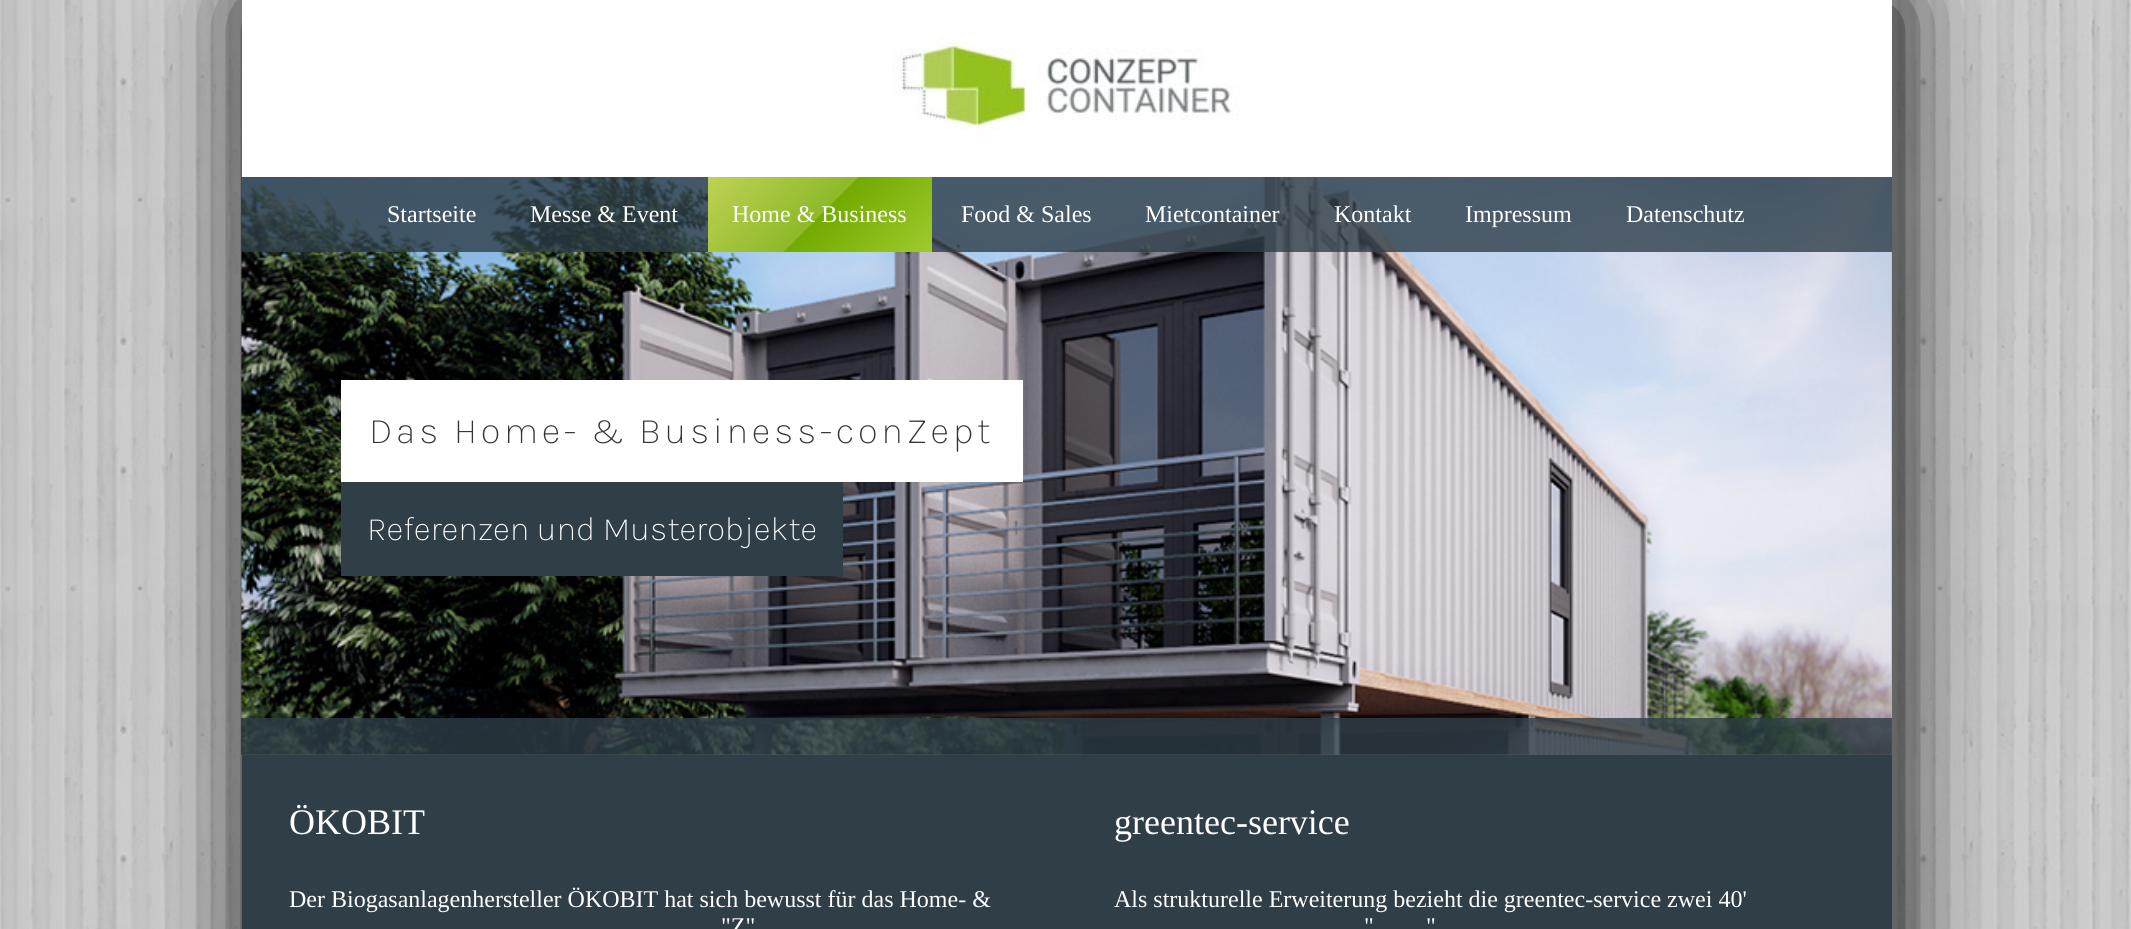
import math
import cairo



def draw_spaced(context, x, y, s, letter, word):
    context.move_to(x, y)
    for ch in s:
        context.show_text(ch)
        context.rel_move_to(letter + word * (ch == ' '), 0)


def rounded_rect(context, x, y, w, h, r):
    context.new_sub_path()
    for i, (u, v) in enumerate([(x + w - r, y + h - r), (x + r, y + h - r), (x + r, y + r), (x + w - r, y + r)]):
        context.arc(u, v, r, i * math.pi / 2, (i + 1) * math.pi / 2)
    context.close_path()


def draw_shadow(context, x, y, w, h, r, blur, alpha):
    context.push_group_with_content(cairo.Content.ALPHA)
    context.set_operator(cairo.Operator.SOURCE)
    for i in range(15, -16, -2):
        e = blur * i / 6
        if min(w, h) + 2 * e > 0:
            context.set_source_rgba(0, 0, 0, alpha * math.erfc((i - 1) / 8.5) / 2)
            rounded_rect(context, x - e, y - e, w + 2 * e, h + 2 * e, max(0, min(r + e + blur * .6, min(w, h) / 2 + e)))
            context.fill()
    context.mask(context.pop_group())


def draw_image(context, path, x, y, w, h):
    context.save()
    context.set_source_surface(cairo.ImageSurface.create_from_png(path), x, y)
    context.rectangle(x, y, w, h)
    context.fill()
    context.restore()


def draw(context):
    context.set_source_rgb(1, 1, 1)
    context.paint()
    draw_image(context, "images/1.png", 0, 0, 2131, 929)
    context.set_source_rgb(0, 0, 0)
    draw_shadow(context, 248, 5, 1650, 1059, 0, 45, 1)
    context.set_source_rgb(1, 1, 1)
    context.rectangle(242, 0, 1650, 177)
    context.fill()
    draw_image(context, "images/2.png", 892, 32, 348, 112)
    context.set_source_rgb(189 / 255, 182 / 255, 172 / 255)
    context.rectangle(242, 177, 1650, 578)
    context.fill()
    draw_image(context, "images/3.png", 241, 177, 1651, 578)
    context.set_source_rgba(47 / 255, 62 / 255, 72 / 255, 0.8)
    context.rectangle(241, 177, 1651, 75)
    context.fill()
    gradient = cairo.LinearGradient(745, 140, 894, 289)
    gradient.add_color_stop_rgba(0, 191 / 255, 210 / 255, 85 / 255, 1)
    gradient.add_color_stop_rgba(0.5, 142 / 255, 185 / 255, 42 / 255, 1)
    gradient.add_color_stop_rgba(0.51, 114 / 255, 170 / 255, 0, 1)
    gradient.add_color_stop_rgba(1, 158 / 255, 203 / 255, 45 / 255, 1)
    context.set_source(gradient)
    context.rectangle(708, 177, 224, 75)
    context.fill()
    context.set_source_rgb(1, 1, 1)
    context.rectangle(341, 380, 682, 102)
    context.fill()
    context.set_source_rgb(48 / 255, 62 / 255, 72 / 255)
    context.rectangle(341, 482, 502, 94)
    context.fill()
    context.set_source_rgba(47 / 255, 62 / 255, 72 / 255, 0.8)
    context.rectangle(241, 718, 1651, 37)
    context.fill()
    context.set_source_rgb(48 / 255, 62 / 255, 72 / 255)
    context.rectangle(242, 755, 1650, 174)
    context.fill()
    context.select_font_face("Liberation Serif")
    context.set_font_size(24)
    context.set_source_rgb(1, 1, 1)
    context.move_to(387, 222)
    context.show_text("Startseite")
    context.move_to(530, 222)
    context.show_text("Messe & Event")
    context.move_to(732, 222)
    context.show_text("Home & Business")
    context.move_to(961, 222)
    context.show_text("Food & Sales")
    context.move_to(1145, 222)
    context.show_text("Mietcontainer")
    context.move_to(1334, 222)
    context.show_text("Kontakt")
    context.move_to(1465, 222)
    context.show_text("Impressum")
    context.move_to(1626, 222)
    context.show_text("Datenschutz")
    context.select_font_face("Karla ExtraLight")
    context.set_font_size(37)
    context.set_source_rgb(51 / 255, 51 / 255, 51 / 255)
    draw_spaced(context, 369, 443, "Das Home- & Business-conZept", 3.7, 0)
    context.set_font_size(33.6)
    context.set_source_rgb(1, 1, 1)
    context.move_to(367, 540)
    context.show_text("Referenzen und Musterobjekte")
    context.select_font_face("Liberation Serif")
    context.set_font_size(36)
    context.move_to(289, 834)
    context.show_text("ÖKOBIT")
    context.set_font_size(24)
    context.move_to(289, 907)
    context.show_text("Der Biogasanlagenhersteller ÖKOBIT hat sich bewusst für das Home- &")
    context.move_to(721, 934)
    context.show_text("\"Z\"")
    context.set_font_size(36)
    context.move_to(1114, 834)
    context.show_text("greentec-service")
    context.set_font_size(24)
    context.move_to(1114, 907)
    context.show_text("Als strukturelle Erweiterung bezieht die greentec-service zwei 40'")
    context.move_to(1364, 934)
    context.show_text("\"")
    context.move_to(1426, 934)
    context.show_text("\"")


surface = cairo.ImageSurface(cairo.Format.RGB24, 2131, 929)
context = cairo.Context(surface)
options = cairo.FontOptions()
options.set_hint_metrics(cairo.HintMetrics.OFF)
options.set_hint_style(cairo.HintStyle.NONE)
context.set_font_options(options)
context.set_miter_limit(4)
draw(context)
surface.write_to_png("out.png")
